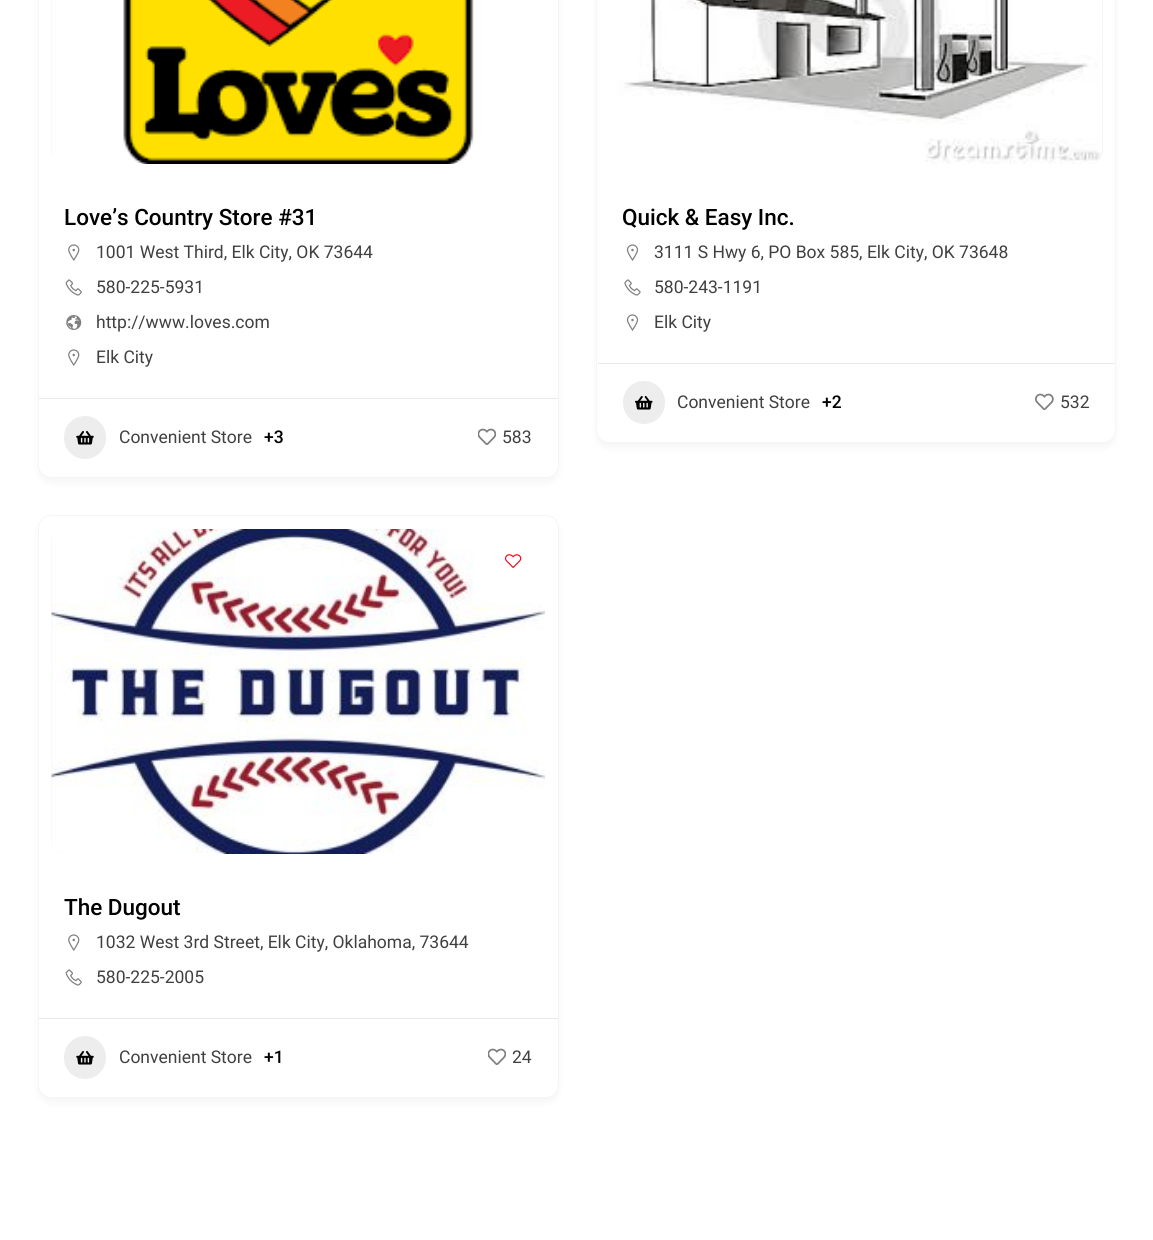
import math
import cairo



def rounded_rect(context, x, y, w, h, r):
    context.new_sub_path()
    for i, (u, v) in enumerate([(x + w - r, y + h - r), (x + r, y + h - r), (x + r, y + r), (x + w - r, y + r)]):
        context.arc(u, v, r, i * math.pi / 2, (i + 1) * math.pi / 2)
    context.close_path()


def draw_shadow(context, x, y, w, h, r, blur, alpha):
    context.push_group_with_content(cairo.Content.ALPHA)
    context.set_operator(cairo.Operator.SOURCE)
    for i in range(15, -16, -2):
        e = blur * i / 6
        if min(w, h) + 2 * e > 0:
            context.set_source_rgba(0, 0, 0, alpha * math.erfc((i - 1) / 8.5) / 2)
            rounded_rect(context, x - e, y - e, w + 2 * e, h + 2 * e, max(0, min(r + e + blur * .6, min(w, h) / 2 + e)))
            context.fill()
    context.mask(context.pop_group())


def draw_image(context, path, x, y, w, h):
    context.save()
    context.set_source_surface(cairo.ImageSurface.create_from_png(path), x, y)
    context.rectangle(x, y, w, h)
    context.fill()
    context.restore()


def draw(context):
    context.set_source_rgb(1, 1, 1)
    context.paint()
    context.set_source_rgb(0, 0, 0)
    draw_shadow(context, 38, -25, 521, 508, 13, 4, 0.04)
    context.set_source_rgb(1, 1, 1)
    rounded_rect(context, 38.5, -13.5, 520, 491, 12.5)
    context.fill_preserve()
    context.set_source_rgb(245 / 255, 245 / 255, 245 / 255)
    context.set_line_width(1)
    context.stroke()
    context.set_source_rgb(244 / 255, 244 / 255, 244 / 255)
    rounded_rect(context, 51, -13, 494, 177, 13)
    context.fill()
    draw_image(context, "images/1.png", 51, 0, 494, 164)
    draw_image(context, "images/2.png", 68, 244, 12, 17)
    draw_image(context, "images/3.png", 65, 279, 17, 17)
    draw_image(context, "images/4.png", 66, 315, 16, 15)
    draw_image(context, "images/2.png", 68, 349, 12, 17)
    context.set_source_rgb(233 / 255, 233 / 255, 233 / 255)
    context.rectangle(39, 398, 519, 1)
    context.fill()
    context.set_source_rgb(237 / 255, 237 / 255, 237 / 255)
    rounded_rect(context, 64, 416, 42, 43, 21)
    context.fill()
    draw_image(context, "images/5.png", 76, 431, 18, 14)
    draw_image(context, "images/6.png", 478, 428, 18, 17)
    context.set_source_rgb(0, 0, 0)
    draw_shadow(context, 596, -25, 520, 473, 13, 4, 0.04)
    context.set_source_rgb(1, 1, 1)
    rounded_rect(context, 596.5, -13.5, 519, 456, 12.5)
    context.fill_preserve()
    context.set_source_rgb(245 / 255, 245 / 255, 245 / 255)
    context.stroke()
    context.set_source_rgb(244 / 255, 244 / 255, 244 / 255)
    rounded_rect(context, 610, -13, 493, 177, 13)
    context.fill()
    draw_image(context, "images/7.png", 610, 0, 492, 164)
    draw_image(context, "images/8.png", 626, 244, 13, 17)
    draw_image(context, "images/9.png", 624, 279, 17, 17)
    draw_image(context, "images/8.png", 626, 314, 13, 17)
    context.set_source_rgb(233 / 255, 233 / 255, 233 / 255)
    context.rectangle(598, 363, 517, 1)
    context.fill()
    context.set_source_rgb(237 / 255, 237 / 255, 237 / 255)
    rounded_rect(context, 623, 381, 42, 43, 21)
    context.fill()
    draw_image(context, "images/10.png", 635, 396, 18, 14)
    draw_image(context, "images/11.png", 1035, 393, 19, 17)
    context.set_source_rgb(0, 0, 0)
    draw_shadow(context, 38, 520, 521, 583, 13, 4, 0.04)
    context.set_source_rgb(1, 1, 1)
    rounded_rect(context, 38.5, 515.5, 520, 582, 12.5)
    context.fill_preserve()
    context.set_source_rgb(245 / 255, 245 / 255, 245 / 255)
    context.stroke()
    context.set_source_rgb(244 / 255, 244 / 255, 244 / 255)
    rounded_rect(context, 51, 529, 494, 325, 13)
    context.fill()
    draw_image(context, "images/12.png", 51, 529, 494, 325)
    draw_image(context, "images/13.png", 504, 554, 18, 15)
    draw_image(context, "images/2.png", 68, 934, 12, 17)
    draw_image(context, "images/3.png", 65, 969, 17, 17)
    context.set_source_rgb(233 / 255, 233 / 255, 233 / 255)
    context.rectangle(39, 1018, 519, 1)
    context.fill()
    context.set_source_rgb(237 / 255, 237 / 255, 237 / 255)
    rounded_rect(context, 64, 1036, 42, 43, 21)
    context.fill()
    draw_image(context, "images/5.png", 76, 1051, 18, 14)
    draw_image(context, "images/6.png", 488, 1048, 18, 17)
    context.select_font_face("Roboto Medium")
    context.set_font_size(22.5)
    context.set_source_rgb(0, 0, 0)
    context.move_to(64, 225)
    context.show_text("Love’s Country Store #31")
    context.select_font_face("Roboto")
    context.set_font_size(17.5)
    context.set_source_rgb(64 / 255, 64 / 255, 64 / 255)
    context.move_to(96, 258)
    context.show_text("1001 West Third, Elk City, OK 73644")
    context.move_to(96, 293)
    context.show_text("580-225-5931")
    context.move_to(96, 328)
    context.show_text("http://www.loves.com")
    context.move_to(96, 363)
    context.show_text("Elk City")
    context.move_to(119, 443)
    context.show_text("Convenient Store")
    context.select_font_face("Roboto Medium")
    context.set_source_rgb(0, 0, 0)
    context.move_to(264, 443)
    context.show_text("+3")
    context.select_font_face("Roboto")
    context.set_source_rgb(64 / 255, 64 / 255, 64 / 255)
    context.move_to(502, 443)
    context.show_text("583")
    context.select_font_face("Roboto Medium")
    context.set_font_size(22.5)
    context.set_source_rgb(0, 0, 0)
    context.move_to(622, 225)
    context.show_text("Quick & Easy Inc.")
    context.select_font_face("Roboto")
    context.set_font_size(17.5)
    context.set_source_rgb(64 / 255, 64 / 255, 64 / 255)
    context.move_to(654, 258)
    context.show_text("3111 S Hwy 6, PO Box 585, Elk City, OK 73648")
    context.move_to(654, 293)
    context.show_text("580-243-1191")
    context.move_to(654, 328)
    context.show_text("Elk City")
    context.move_to(677, 408)
    context.show_text("Convenient Store")
    context.select_font_face("Roboto Medium")
    context.set_source_rgb(0, 0, 0)
    context.move_to(822, 408)
    context.show_text("+2")
    context.select_font_face("Roboto")
    context.set_source_rgb(64 / 255, 64 / 255, 64 / 255)
    context.move_to(1060, 408)
    context.show_text("532")
    context.select_font_face("Roboto Medium")
    context.set_font_size(22.5)
    context.set_source_rgb(0, 0, 0)
    context.move_to(64, 915)
    context.show_text("The Dugout")
    context.select_font_face("Roboto")
    context.set_font_size(17.5)
    context.set_source_rgb(64 / 255, 64 / 255, 64 / 255)
    context.move_to(96, 948)
    context.show_text("1032 West 3rd Street, Elk City, Oklahoma, 73644")
    context.move_to(96, 983)
    context.show_text("580-225-2005")
    context.move_to(119, 1063)
    context.show_text("Convenient Store")
    context.select_font_face("Roboto Medium")
    context.set_source_rgb(0, 0, 0)
    context.move_to(264, 1063)
    context.show_text("+1")
    context.select_font_face("Roboto")
    context.set_source_rgb(64 / 255, 64 / 255, 64 / 255)
    context.move_to(512, 1063)
    context.show_text("24")


surface = cairo.ImageSurface(cairo.Format.RGB24, 1153, 1240)
context = cairo.Context(surface)
options = cairo.FontOptions()
options.set_hint_metrics(cairo.HintMetrics.OFF)
options.set_hint_style(cairo.HintStyle.NONE)
context.set_font_options(options)
context.set_miter_limit(4)
draw(context)
surface.write_to_png("out.png")
